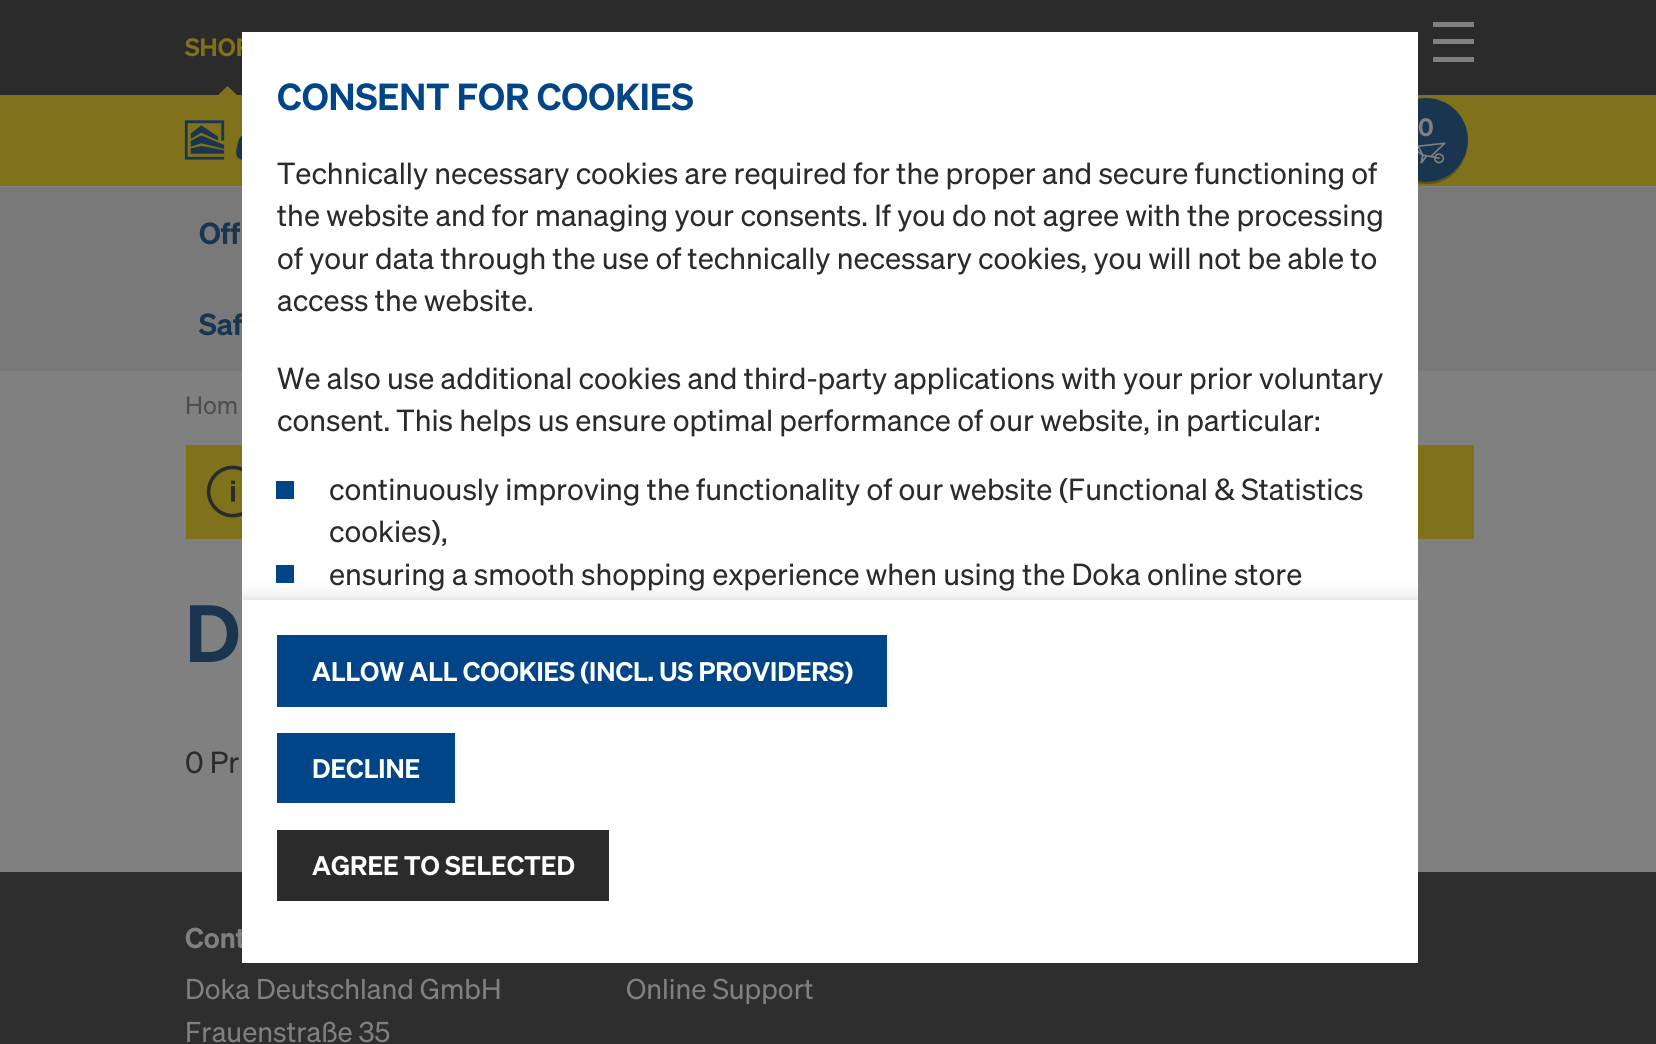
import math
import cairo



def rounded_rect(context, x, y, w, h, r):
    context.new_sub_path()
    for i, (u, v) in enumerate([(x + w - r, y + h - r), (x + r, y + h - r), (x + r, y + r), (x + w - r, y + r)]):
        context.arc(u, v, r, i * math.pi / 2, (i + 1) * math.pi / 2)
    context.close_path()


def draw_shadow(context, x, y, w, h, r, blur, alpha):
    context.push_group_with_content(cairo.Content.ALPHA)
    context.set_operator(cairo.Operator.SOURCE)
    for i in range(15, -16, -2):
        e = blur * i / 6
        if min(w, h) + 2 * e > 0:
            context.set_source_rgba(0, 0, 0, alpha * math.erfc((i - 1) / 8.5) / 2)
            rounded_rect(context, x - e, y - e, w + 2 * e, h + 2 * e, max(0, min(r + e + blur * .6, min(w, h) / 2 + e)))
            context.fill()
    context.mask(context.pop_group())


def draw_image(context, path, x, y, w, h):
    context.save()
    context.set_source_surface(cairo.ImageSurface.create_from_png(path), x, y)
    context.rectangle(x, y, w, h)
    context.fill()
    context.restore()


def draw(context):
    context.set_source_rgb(128 / 255, 128 / 255, 128 / 255)
    context.paint()
    context.set_source_rgb(43 / 255, 43 / 255, 43 / 255)
    context.rectangle(0, 0, 1656, 95)
    context.fill()
    context.set_source_rgb(128 / 255, 114 / 255, 26 / 255)
    context.rectangle(0, 95, 1656, 91)
    context.fill()
    context.new_path()
    context.move_to(240, 98)
    context.line_to(215, 98)
    context.line_to(227.5, 86)
    context.close_path()
    context.fill()
    context.set_source_rgb(128 / 255, 128 / 255, 128 / 255)
    context.new_path()
    context.move_to(1433, 22)
    context.line_to(1433, 27)
    context.line_to(1474, 27)
    context.line_to(1474, 22)
    context.close_path()
    context.move_to(1433, 44)
    context.line_to(1474, 44)
    context.line_to(1474, 39)
    context.line_to(1433, 39)
    context.close_path()
    context.move_to(1433, 62)
    context.line_to(1474, 62)
    context.line_to(1474, 57)
    context.line_to(1433, 57)
    context.close_path()
    context.fill()
    draw_image(context, "images/1.png", 184, 120, 58, 40)
    context.set_source_rgb(92 / 255, 83 / 255, 26 / 255)
    context.new_path()
    context.move_to(1384, 136)
    context.curve_to(1378, 178, 1433, 202, 1459, 168)
    context.curve_to(1464, 161, 1467, 154, 1468, 146)
    context.curve_to(1462, 184, 1413, 195, 1391, 163)
    context.curve_to(1386, 155, 1383, 145, 1384, 136)
    context.close_path()
    context.fill()
    context.set_source_rgb(26 / 255, 53 / 255, 80 / 255)
    context.arc(1426, 140, 42, 0, 2 * math.pi)
    context.fill()
    draw_image(context, "images/2.png", 1418, 142, 28, 22)
    context.set_source_rgb(121 / 255, 121 / 255, 121 / 255)
    context.rectangle(0, 187, 1656, 184)
    context.fill()
    context.set_source_rgb(128 / 255, 114 / 255, 26 / 255)
    context.rectangle(186, 445, 1288, 94)
    context.fill()
    draw_image(context, "images/3.png", 206, 465, 36, 53)
    context.set_source_rgb(46 / 255, 46 / 255, 46 / 255)
    context.rectangle(0, 872, 1656, 172)
    context.fill()
    context.select_font_face("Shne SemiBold")
    context.set_font_size(24.5)
    context.set_source_rgb(128 / 255, 114 / 255, 26 / 255)
    context.move_to(185, 56)
    context.show_text("SHOP")
    context.set_source_rgb(128 / 255, 128 / 255, 128 / 255)
    context.move_to(1418, 136)
    context.show_text("0")
    context.set_font_size(29.75)
    context.set_source_rgb(26 / 255, 53 / 255, 80 / 255)
    context.move_to(199, 244)
    context.show_text("Off")
    context.move_to(199, 335)
    context.show_text("Saf")
    context.select_font_face("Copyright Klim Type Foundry")
    context.set_font_size(24.5)
    context.set_source_rgb(77 / 255, 77 / 255, 77 / 255)
    context.move_to(185, 414)
    context.show_text("Hom")
    context.select_font_face("Shne SemiBold")
    context.set_font_size(79)
    context.set_source_rgb(26 / 255, 53 / 255, 80 / 255)
    context.move_to(185, 662)
    context.show_text("D")
    context.select_font_face("Copyright Klim Type Foundry")
    context.set_font_size(29.75)
    context.set_source_rgb(43 / 255, 43 / 255, 43 / 255)
    context.move_to(185, 773)
    context.show_text("0 Pr")
    context.select_font_face("Shne SemiBold")
    context.set_font_size(28)
    context.set_source_rgb(128 / 255, 128 / 255, 128 / 255)
    context.move_to(185, 948)
    context.show_text("Cont")
    context.select_font_face("Copyright Klim Type Foundry")
    context.move_to(185, 999)
    context.show_text("Doka Deutschland GmbH")
    context.move_to(185, 1042)
    context.show_text("Frauenstraße 35")
    context.move_to(626, 999)
    context.show_text("Online Support")
    context.set_source_rgb(1, 1, 1)
    context.rectangle(242, 32, 1176, 568)
    context.fill()
    context.select_font_face("Shne SemiBold")
    context.set_font_size(36.75)
    context.set_source_rgb(0, 69 / 255, 136 / 255)
    context.move_to(277, 110)
    context.show_text("CONSENT FOR COOKIES")
    context.select_font_face("Copyright Klim Type Foundry")
    context.set_font_size(29.75)
    context.set_source_rgb(43 / 255, 43 / 255, 43 / 255)
    context.move_to(277, 184)
    context.show_text("Technically necessary cookies are required for the proper and secure functioning of")
    context.move_to(277, 226)
    context.show_text("the website and for managing your consents. If you do not agree with the processing")
    context.move_to(277, 269)
    context.show_text("of your data through the use of technically necessary cookies, you will not be able to")
    context.move_to(277, 311)
    context.show_text("access the website.")
    context.move_to(277, 389)
    context.show_text("We also use additional cookies and third-party applications with your prior voluntary")
    context.move_to(277, 431)
    context.show_text("consent. This helps us ensure optimal performance of our website, in particular:")
    context.set_source_rgb(0, 69 / 255, 136 / 255)
    context.rectangle(276, 481, 18, 18)
    context.fill()
    context.set_source_rgb(43 / 255, 43 / 255, 43 / 255)
    context.move_to(329, 500)
    context.show_text("continuously improving the functionality of our website (Functional & Statistics")
    context.move_to(329, 542)
    context.show_text("cookies),")
    context.save()
    context.rectangle(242, 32, 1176, 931)
    context.clip()
    context.set_source_rgb(0, 0, 0)
    draw_shadow(context, 242, 600, 1176, 363, 0, 9, 0.2)
    context.restore()
    context.set_source_rgb(0, 69 / 255, 136 / 255)
    context.rectangle(276, 565, 18, 18)
    context.fill()
    context.set_source_rgb(43 / 255, 43 / 255, 43 / 255)
    context.move_to(329, 585)
    context.show_text("ensuring a smooth shopping experience when using the Doka online store")
    context.set_source_rgb(1, 1, 1)
    context.rectangle(242, 600, 1176, 363)
    context.fill()
    context.set_source_rgb(0, 69 / 255, 136 / 255)
    context.rectangle(277, 635, 610, 72)
    context.fill()
    context.select_font_face("Shne SemiBold")
    context.set_font_size(26.25)
    context.set_source_rgb(1, 1, 1)
    context.move_to(312, 681)
    context.show_text("ALLOW ALL COOKIES (INCL. US PROVIDERS)")
    context.set_source_rgb(0, 69 / 255, 136 / 255)
    context.rectangle(277, 733, 178, 70)
    context.fill()
    context.set_source_rgb(1, 1, 1)
    context.move_to(312, 778)
    context.show_text("DECLINE")
    context.set_source_rgb(43 / 255, 43 / 255, 43 / 255)
    context.rectangle(277, 830, 332, 71)
    context.fill()
    context.set_source_rgb(1, 1, 1)
    context.move_to(312, 875)
    context.show_text("AGREE TO SELECTED")


surface = cairo.ImageSurface(cairo.Format.RGB24, 1656, 1044)
context = cairo.Context(surface)
options = cairo.FontOptions()
options.set_hint_metrics(cairo.HintMetrics.OFF)
options.set_hint_style(cairo.HintStyle.NONE)
context.set_font_options(options)
context.set_miter_limit(4)
draw(context)
surface.write_to_png("out.png")
